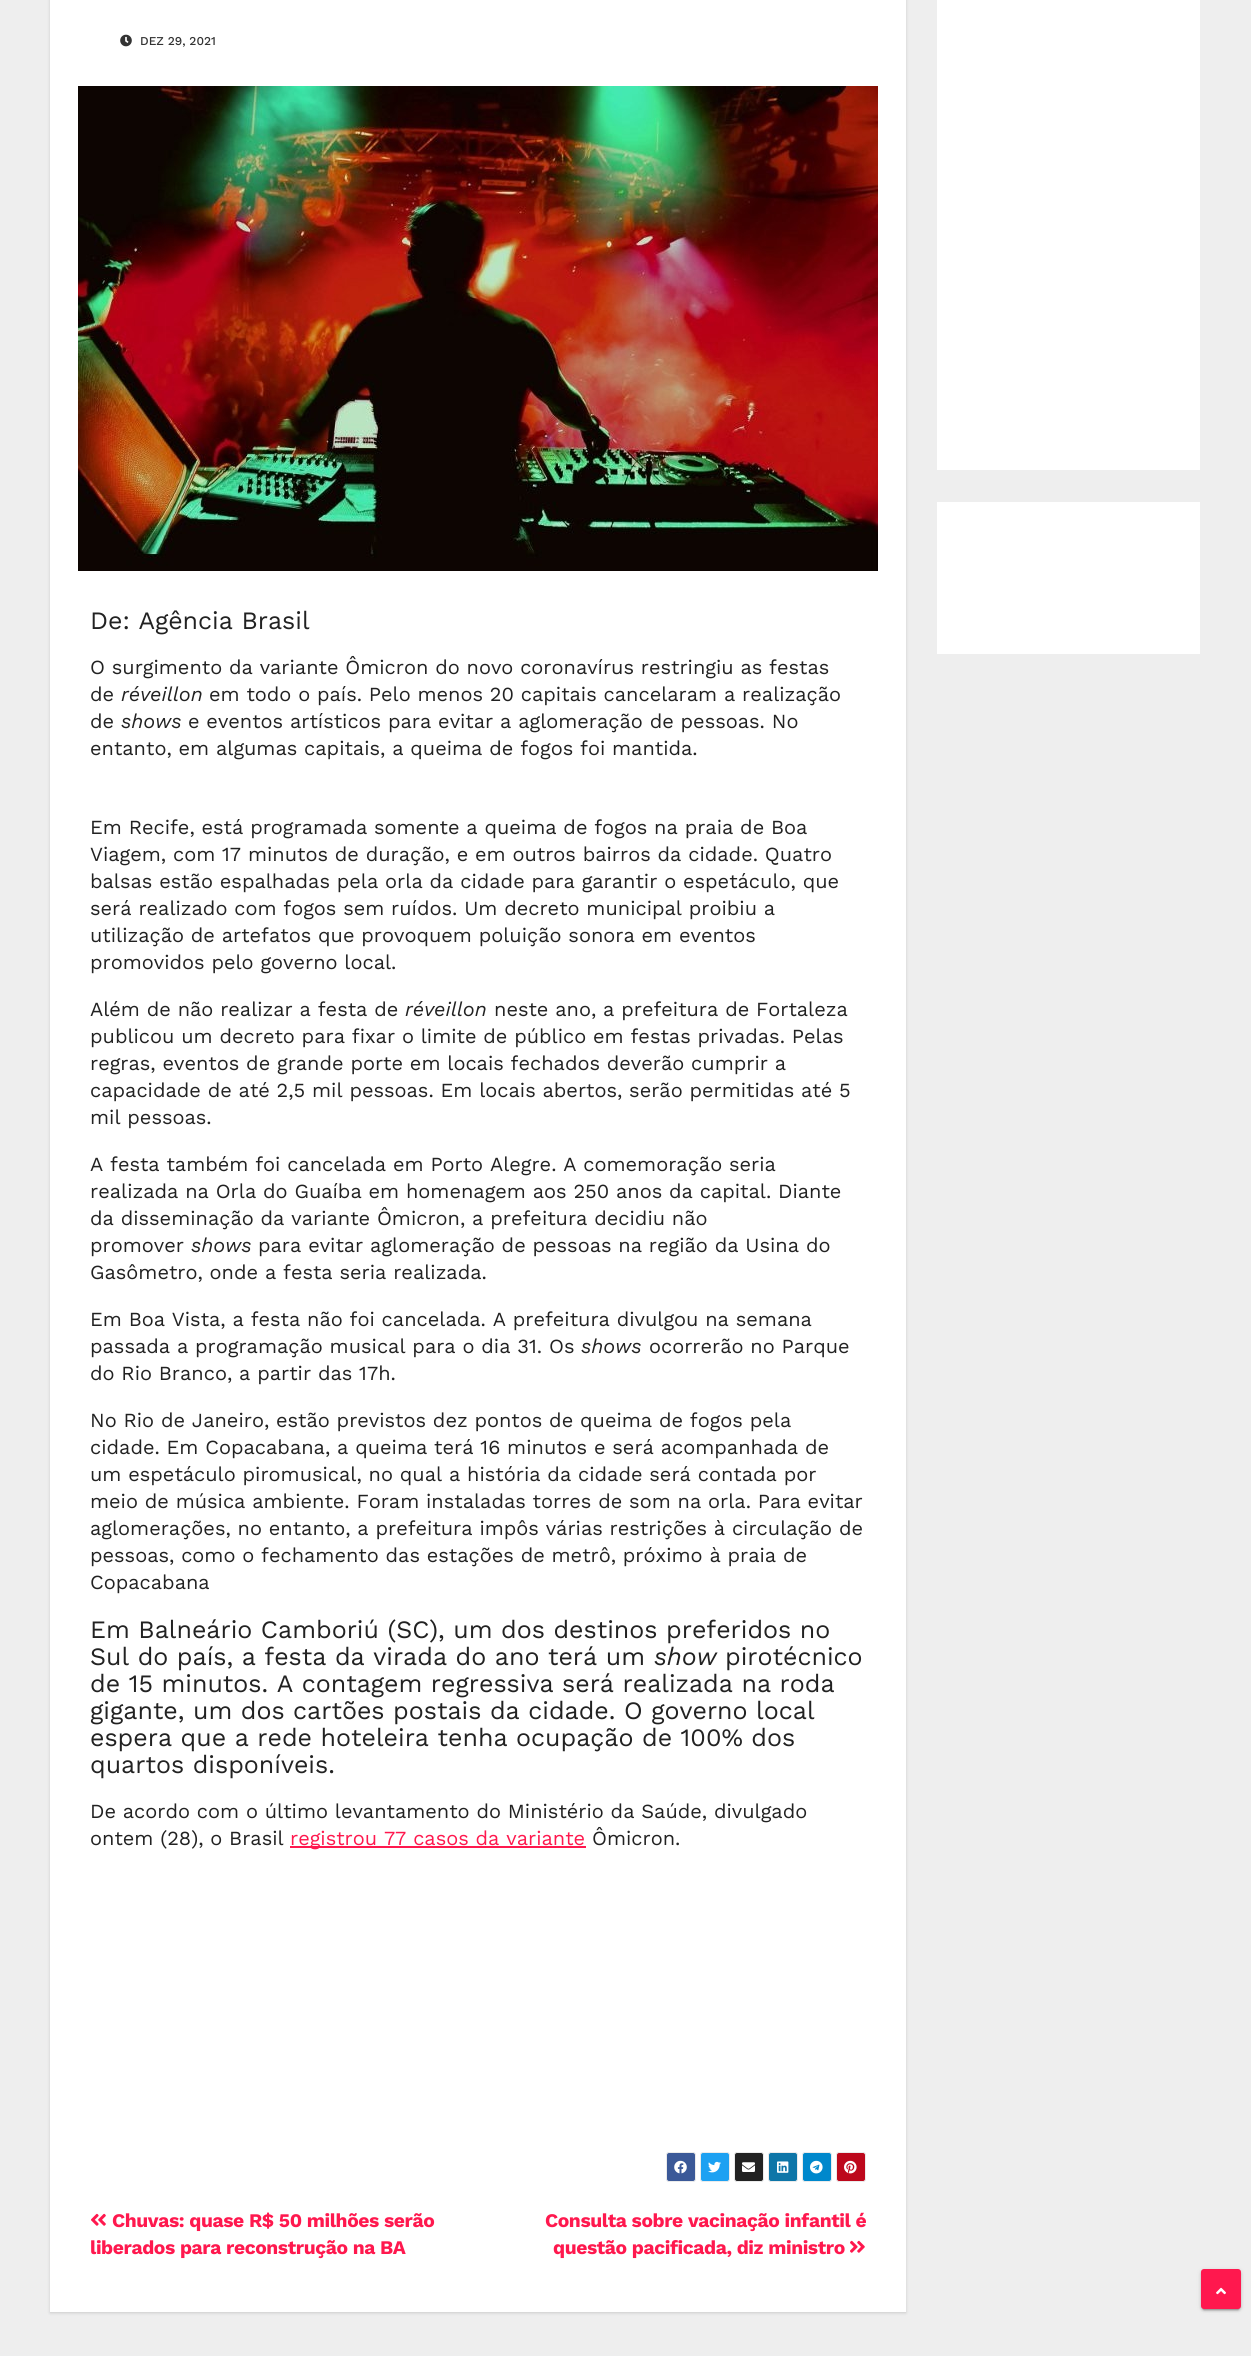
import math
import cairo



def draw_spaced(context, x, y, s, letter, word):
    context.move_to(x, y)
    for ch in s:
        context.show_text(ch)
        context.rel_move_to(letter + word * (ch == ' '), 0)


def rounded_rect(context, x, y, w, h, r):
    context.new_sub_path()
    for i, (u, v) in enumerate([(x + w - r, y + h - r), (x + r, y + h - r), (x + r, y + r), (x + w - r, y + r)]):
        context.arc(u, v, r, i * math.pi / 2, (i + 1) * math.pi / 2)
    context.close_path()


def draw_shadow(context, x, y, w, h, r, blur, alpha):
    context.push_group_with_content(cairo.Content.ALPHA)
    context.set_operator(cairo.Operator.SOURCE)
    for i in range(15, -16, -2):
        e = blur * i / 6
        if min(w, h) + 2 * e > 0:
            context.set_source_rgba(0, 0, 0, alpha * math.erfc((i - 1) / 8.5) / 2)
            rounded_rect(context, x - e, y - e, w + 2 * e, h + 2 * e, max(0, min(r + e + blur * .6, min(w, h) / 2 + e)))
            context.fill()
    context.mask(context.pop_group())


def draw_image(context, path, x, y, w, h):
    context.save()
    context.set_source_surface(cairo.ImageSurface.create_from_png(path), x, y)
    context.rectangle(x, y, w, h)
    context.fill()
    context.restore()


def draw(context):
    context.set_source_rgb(238 / 255, 238 / 255, 238 / 255)
    context.paint()
    context.set_source_rgb(0, 0, 0)
    draw_shadow(context, 50, -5, 856, 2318, 0, 1.5, 0.15)
    context.set_source_rgb(1, 1, 1)
    context.rectangle(50, 0, 856, 2312)
    context.fill()
    draw_image(context, "images/1.png", 120, 34, 12, 13)
    draw_image(context, "images/2.png", 78, 86, 800, 485)
    context.set_source_rgb(1, 24 / 255, 78 / 255)
    context.rectangle(290, 1846, 296, 2)
    context.fill()
    context.set_source_rgb(59 / 255, 89 / 255, 152 / 255)
    rounded_rect(context, 666.5, 2152.5, 29, 29, 2.5)
    context.fill_preserve()
    context.set_source_rgb(235 / 255, 235 / 255, 235 / 255)
    context.set_line_width(1)
    context.stroke()
    draw_image(context, "images/3.png", 674, 2160, 13, 14)
    context.set_source_rgb(29 / 255, 161 / 255, 242 / 255)
    rounded_rect(context, 700.5, 2152.5, 29, 29, 2.5)
    context.fill_preserve()
    context.set_source_rgb(235 / 255, 235 / 255, 235 / 255)
    context.stroke()
    draw_image(context, "images/4.png", 708, 2161, 13, 12)
    context.set_source_rgb(34 / 255, 34 / 255, 34 / 255)
    rounded_rect(context, 734.5, 2152.5, 29, 29, 2.5)
    context.fill_preserve()
    context.set_source_rgb(235 / 255, 235 / 255, 235 / 255)
    context.stroke()
    draw_image(context, "images/5.png", 742, 2162, 13, 10)
    context.set_source_rgb(14 / 255, 118 / 255, 168 / 255)
    rounded_rect(context, 768.5, 2152.5, 29, 29, 2.5)
    context.fill_preserve()
    context.set_source_rgb(235 / 255, 235 / 255, 235 / 255)
    context.stroke()
    draw_image(context, "images/6.png", 777, 2161, 12, 12)
    context.set_source_rgb(0, 136 / 255, 204 / 255)
    rounded_rect(context, 802.5, 2152.5, 29, 29, 2.5)
    context.fill_preserve()
    context.set_source_rgb(235 / 255, 235 / 255, 235 / 255)
    context.stroke()
    draw_image(context, "images/7.png", 810, 2160, 13, 14)
    context.set_source_rgb(189 / 255, 8 / 255, 28 / 255)
    rounded_rect(context, 836.5, 2152.5, 29, 29, 2.5)
    context.fill_preserve()
    context.set_source_rgb(235 / 255, 235 / 255, 235 / 255)
    context.stroke()
    draw_image(context, "images/8.png", 844, 2160, 13, 14)
    draw_image(context, "images/9.png", 91, 2213, 15, 13)
    draw_image(context, "images/10.png", 850, 2240, 15, 13)
    context.set_source_rgb(1, 1, 1)
    context.rectangle(937, 0, 263, 470)
    context.fill()
    context.rectangle(937, 502, 263, 152)
    context.fill()
    context.set_source_rgb(0, 0, 0)
    draw_shadow(context, 1201, 2270, 40, 40, 3, 2.5, 0.12)
    draw_shadow(context, 1203, 2274, 36, 36, 1, 0.5, 0.2)
    draw_shadow(context, 1201, 2271, 40, 40, 3, 1, 0.14)
    context.set_source_rgb(1, 24 / 255, 78 / 255)
    rounded_rect(context, 1202, 2270, 38, 38, 2)
    context.fill_preserve()
    context.set_line_width(2)
    context.stroke()
    draw_image(context, "images/11.png", 1216, 2287, 10, 8)
    context.select_font_face("Work Sans Medium")
    context.set_font_size(12)
    context.set_source_rgb(51 / 255, 51 / 255, 51 / 255)
    context.move_to(140, 45)
    context.show_text("DEZ 29, 2021")
    context.select_font_face("Work Sans")
    context.set_font_size(25)
    context.set_source_rgb(34 / 255, 34 / 255, 34 / 255)
    context.move_to(90, 629)
    context.show_text("De: Agência Brasil")
    context.set_font_size(20)
    context.move_to(90, 674)
    context.show_text("O surgimento da variante Ômicron do novo coronavírus restringiu as festas")
    context.move_to(90, 701)
    context.show_text("de")
    context.select_font_face("Work Sans", cairo.FontSlant.ITALIC)
    context.move_to(121, 701)
    context.show_text("réveillon")
    context.select_font_face("Work Sans")
    context.move_to(209, 701)
    context.show_text("em todo o país. Pelo menos 20 capitais cancelaram a realização")
    context.move_to(90, 728)
    context.show_text("de")
    context.select_font_face("Work Sans", cairo.FontSlant.ITALIC)
    context.move_to(121, 728)
    context.show_text("shows")
    context.select_font_face("Work Sans")
    context.move_to(188, 728)
    context.show_text("e eventos artísticos para evitar a aglomeração de pessoas. No")
    context.move_to(90, 755)
    context.show_text("entanto, em algumas capitais, a queima de fogos foi mantida.")
    context.move_to(90, 834)
    context.show_text("Em Recife, está programada somente a queima de fogos na praia de Boa")
    context.move_to(90, 861)
    context.show_text("Viagem, com 17 minutos de duração, e em outros bairros da cidade. Quatro")
    context.move_to(90, 888)
    context.show_text("balsas estão espalhadas pela orla da cidade para garantir o espetáculo, que")
    context.move_to(90, 915)
    context.show_text("será realizado com fogos sem ruídos. Um decreto municipal proibiu a")
    context.move_to(90, 942)
    context.show_text("utilização de artefatos que provoquem poluição sonora em eventos")
    context.move_to(90, 969)
    context.show_text("promovidos pelo governo local.")
    context.move_to(90, 1016)
    context.show_text("Além de não realizar a festa de")
    context.select_font_face("Work Sans", cairo.FontSlant.ITALIC)
    context.move_to(405, 1016)
    context.show_text("réveillon")
    context.select_font_face("Work Sans")
    context.move_to(494, 1016)
    context.show_text("neste ano, a prefeitura de Fortaleza")
    context.move_to(90, 1043)
    context.show_text("publicou um decreto para fixar o limite de público em festas privadas. Pelas")
    context.move_to(90, 1070)
    context.show_text("regras, eventos de grande porte em locais fechados deverão cumprir a")
    context.move_to(90, 1097)
    context.show_text("capacidade de até 2,5 mil pessoas. Em locais abertos, serão permitidas até 5")
    context.move_to(90, 1124)
    context.show_text("mil pessoas.")
    context.move_to(90, 1171)
    context.show_text("A festa também foi cancelada em Porto Alegre. A comemoração seria")
    context.move_to(90, 1198)
    context.show_text("realizada na Orla do Guaíba em homenagem aos 250 anos da capital. Diante")
    context.move_to(90, 1225)
    context.show_text("da disseminação da variante Ômicron, a prefeitura decidiu não")
    context.move_to(90, 1252)
    context.show_text("promover")
    context.select_font_face("Work Sans", cairo.FontSlant.ITALIC)
    context.move_to(191, 1252)
    context.show_text("shows")
    context.select_font_face("Work Sans")
    context.move_to(258, 1252)
    context.show_text("para evitar aglomeração de pessoas na região da Usina do")
    context.move_to(90, 1279)
    context.show_text("Gasômetro, onde a festa seria realizada.")
    context.move_to(90, 1326)
    context.show_text("Em Boa Vista, a festa não foi cancelada. A prefeitura divulgou na semana")
    context.move_to(90, 1353)
    context.show_text("passada a programação musical para o dia 31. Os")
    context.select_font_face("Work Sans", cairo.FontSlant.ITALIC)
    context.move_to(581, 1353)
    context.show_text("shows")
    context.select_font_face("Work Sans")
    context.move_to(649, 1353)
    context.show_text("ocorrerão no Parque")
    context.move_to(90, 1380)
    context.show_text("do Rio Branco, a partir das 17h.")
    context.move_to(90, 1427)
    context.show_text("No Rio de Janeiro, estão previstos dez pontos de queima de fogos pela")
    context.move_to(90, 1454)
    context.show_text("cidade. Em Copacabana, a queima terá 16 minutos e será acompanhada de")
    context.move_to(90, 1481)
    context.show_text("um espetáculo piromusical, no qual a história da cidade será contada por")
    context.move_to(90, 1508)
    context.show_text("meio de música ambiente. Foram instaladas torres de som na orla. Para evitar")
    context.move_to(90, 1535)
    context.show_text("aglomerações, no entanto, a prefeitura impôs várias restrições à circulação de")
    context.move_to(90, 1562)
    context.show_text("pessoas, como o fechamento das estações de metrô, próximo à praia de")
    context.move_to(90, 1589)
    context.show_text("Copacabana")
    context.set_font_size(25)
    context.move_to(90, 1638)
    context.show_text("Em Balneário Camboriú (SC), um dos destinos preferidos no")
    context.move_to(90, 1665)
    context.show_text("Sul do país, a festa da virada do ano terá um")
    context.select_font_face("Work Sans", cairo.FontSlant.ITALIC)
    context.move_to(654, 1665)
    context.show_text("show")
    context.select_font_face("Work Sans")
    context.move_to(725, 1665)
    context.show_text("pirotécnico")
    context.move_to(90, 1692)
    context.show_text("de 15 minutos. A contagem regressiva será realizada na roda")
    context.move_to(90, 1719)
    context.show_text("gigante, um dos cartões postais da cidade. O governo local")
    context.move_to(90, 1746)
    context.show_text("espera que a rede hoteleira tenha ocupação de 100% dos")
    context.move_to(90, 1773)
    context.show_text("quartos disponíveis.")
    context.set_font_size(20)
    context.move_to(90, 1818)
    context.show_text("De acordo com o último levantamento do Ministério da Saúde, divulgado")
    context.move_to(90, 1845)
    context.show_text("ontem (28), o Brasil")
    context.set_source_rgb(1, 24 / 255, 78 / 255)
    context.move_to(290, 1845)
    context.show_text("registrou 77 casos da variante")
    context.set_source_rgb(34 / 255, 34 / 255, 34 / 255)
    context.move_to(592, 1845)
    context.show_text("Ômicron.")
    context.select_font_face("Work Sans", cairo.FontSlant.NORMAL, cairo.FontWeight.BOLD)
    context.set_font_size(19.25)
    context.set_source_rgb(1, 24 / 255, 78 / 255)
    draw_spaced(context, 112, 2227, "Chuvas: quase R$ 50 milhões serão", -0.4, 0)
    draw_spaced(context, 90, 2254, "liberados para reconstrução na BA", -0.4, 0)
    draw_spaced(context, 545, 2227, "Consulta sobre vacinação infantil é", -0.4, 0)
    draw_spaced(context, 553, 2254, "questão pacificada, diz ministro", -0.4, 0)


surface = cairo.ImageSurface(cairo.Format.RGB24, 1251, 2356)
context = cairo.Context(surface)
options = cairo.FontOptions()
options.set_hint_metrics(cairo.HintMetrics.OFF)
options.set_hint_style(cairo.HintStyle.NONE)
context.set_font_options(options)
context.set_miter_limit(4)
draw(context)
surface.write_to_png("out.png")
